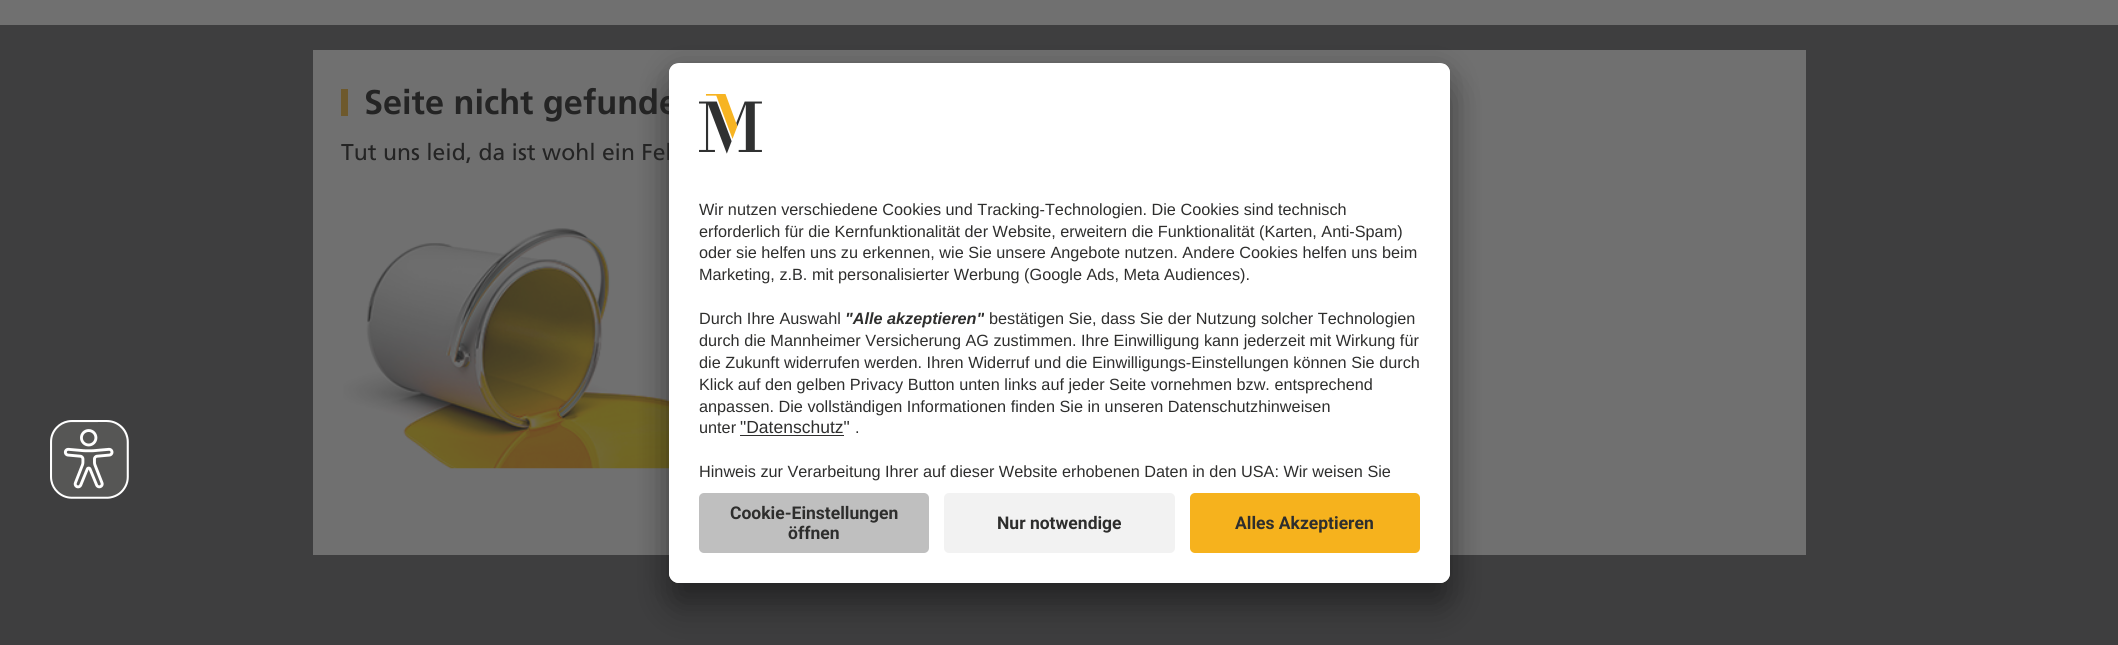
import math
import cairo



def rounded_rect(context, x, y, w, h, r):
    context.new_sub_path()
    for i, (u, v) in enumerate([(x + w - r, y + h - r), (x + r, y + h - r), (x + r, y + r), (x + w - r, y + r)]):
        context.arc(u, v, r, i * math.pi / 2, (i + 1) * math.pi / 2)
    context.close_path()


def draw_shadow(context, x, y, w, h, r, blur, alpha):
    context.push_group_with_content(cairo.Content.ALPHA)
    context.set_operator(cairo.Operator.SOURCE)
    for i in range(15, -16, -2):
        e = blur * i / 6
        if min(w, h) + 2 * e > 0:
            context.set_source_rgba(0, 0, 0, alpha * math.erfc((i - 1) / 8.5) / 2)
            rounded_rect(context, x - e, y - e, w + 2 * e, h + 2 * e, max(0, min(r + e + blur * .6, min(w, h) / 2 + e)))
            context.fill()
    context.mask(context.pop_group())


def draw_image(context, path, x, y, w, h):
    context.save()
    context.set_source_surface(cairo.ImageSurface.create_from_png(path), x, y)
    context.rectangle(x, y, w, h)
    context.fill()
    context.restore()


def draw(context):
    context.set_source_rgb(62 / 255, 62 / 255, 63 / 255)
    context.paint()
    context.set_source_rgb(112 / 255, 112 / 255, 112 / 255)
    context.rectangle(0, 0, 2118, 25)
    context.fill()
    context.rectangle(313, 50, 1493, 505)
    context.fill()
    context.set_source_rgb(110 / 255, 89 / 255, 44 / 255)
    context.rectangle(341, 89, 7, 27)
    context.fill()
    draw_image(context, "images/1.png", 343, 228, 326, 241)
    draw_image(context, "images/2.png", 50, 420, 79, 79)
    context.set_source_rgb(0, 0, 0)
    draw_shadow(context, 669, 88, 781, 520, 10, 17.5, 0.3)
    draw_shadow(context, 669, 69, 781, 520, 10, 16, 0.22)
    context.select_font_face("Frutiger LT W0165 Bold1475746", cairo.FontSlant.NORMAL, cairo.FontWeight.BOLD)
    context.set_font_size(34.25)
    context.set_source_rgb(36 / 255, 36 / 255, 36 / 255)
    context.move_to(364, 114)
    context.show_text("Seite nicht gefunde")
    context.select_font_face("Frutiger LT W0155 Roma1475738")
    context.set_font_size(22.9)
    context.move_to(341, 160)
    context.show_text("Tut uns leid, da ist wohl ein Feh")
    context.set_source_rgb(1, 1, 1)
    rounded_rect(context, 669, 63, 781, 520, 10)
    context.fill()
    context.save()
    rounded_rect(context, 669, 63, 781, 520, 10)
    context.clip()
    context.new_path()
    context.move_to(679, 63)
    context.line_to(1440, 63)
    context.curve_to(1445.5, 63, 1450, 67.5, 1450, 73)
    context.line_to(1450, 483)
    context.line_to(669, 483)
    context.line_to(669, 73)
    context.curve_to(669, 67.5, 673.5, 63, 679, 63)
    context.close_path()
    context.clip()
    context.rectangle(669, 64, 781, 419)
    context.fill()
    context.restore()
    draw_image(context, "images/3.png", 699, 94, 63, 60)
    context.select_font_face("Liberation Sans")
    context.set_font_size(16.25)
    context.set_source_rgb(46 / 255, 46 / 255, 45 / 255)
    context.move_to(699, 215)
    context.show_text("Wir nutzen verschiedene Cookies und Tracking-Technologien. Die Cookies sind technisch")
    context.move_to(699, 237)
    context.show_text("erforderlich für die Kernfunktionalität der Website, erweitern die Funktionalität (Karten, Anti-Spam)")
    context.move_to(699, 258)
    context.show_text("oder sie helfen uns zu erkennen, wie Sie unsere Angebote nutzen. Andere Cookies helfen uns beim")
    context.move_to(699, 280)
    context.show_text("Marketing, z.B. mit personalisierter Werbung (Google Ads, Meta Audiences).")
    context.move_to(699, 324)
    context.show_text("Durch Ihre Auswahl")
    context.select_font_face("Liberation Sans", cairo.FontSlant.ITALIC, cairo.FontWeight.BOLD)
    context.move_to(845, 324)
    context.show_text("\"Alle akzeptieren\"")
    context.select_font_face("Liberation Sans")
    context.move_to(989, 324)
    context.show_text("bestätigen Sie, dass Sie der Nutzung solcher Technologien")
    context.move_to(699, 346)
    context.show_text("durch die Mannheimer Versicherung AG zustimmen. Ihre Einwilligung kann jederzeit mit Wirkung für")
    context.move_to(699, 368)
    context.show_text("die Zukunft widerrufen werden. Ihren Widerruf und die Einwilligungs-Einstellungen können Sie durch")
    context.move_to(699, 390)
    context.show_text("Klick auf den gelben Privacy Button unten links auf jeder Seite vornehmen bzw. entsprechend")
    context.move_to(699, 412)
    context.show_text("anpassen. Die vollständigen Informationen finden Sie in unseren Datenschutzhinweisen")
    context.move_to(699, 433)
    context.show_text("unter")
    context.set_font_size(17.5)
    context.move_to(740, 433)
    context.show_text("\"Datenschutz\"")
    context.rectangle(740, 435, 104, 1)
    context.fill()
    context.set_font_size(16.25)
    context.move_to(855, 433)
    context.show_text(".")
    context.move_to(699, 477)
    context.show_text("Hinweis zur Verarbeitung Ihrer auf dieser Website erhobenen Daten in den USA: Wir weisen Sie")
    context.set_source_rgb(1, 1, 1)
    context.new_path()
    context.move_to(669, 483)
    context.line_to(1450, 483)
    context.line_to(1450, 573)
    context.curve_to(1450, 578.5, 1445.5, 583, 1440, 583)
    context.line_to(679, 583)
    context.curve_to(673.5, 583, 669, 578.5, 669, 573)
    context.close_path()
    context.fill()
    context.set_source_rgb(191 / 255, 191 / 255, 191 / 255)
    rounded_rect(context, 699, 493, 230, 60, 5)
    context.fill()
    context.select_font_face("Roboto", cairo.FontSlant.NORMAL, cairo.FontWeight.BOLD)
    context.set_font_size(17.5)
    context.set_source_rgb(46 / 255, 46 / 255, 45 / 255)
    context.move_to(730, 519)
    context.show_text("Cookie-Einstellungen")
    context.move_to(788, 539)
    context.show_text("öffnen")
    context.set_source_rgb(242 / 255, 242 / 255, 242 / 255)
    rounded_rect(context, 944, 493, 231, 60, 5)
    context.fill()
    context.set_source_rgb(46 / 255, 46 / 255, 45 / 255)
    context.move_to(997, 529)
    context.show_text("Nur notwendige")
    context.set_source_rgb(246 / 255, 178 / 255, 29 / 255)
    rounded_rect(context, 1190, 493, 230, 60, 5)
    context.fill()
    context.set_source_rgb(46 / 255, 46 / 255, 45 / 255)
    context.move_to(1235, 529)
    context.show_text("Alles Akzeptieren")


surface = cairo.ImageSurface(cairo.Format.RGB24, 2118, 645)
context = cairo.Context(surface)
options = cairo.FontOptions()
options.set_hint_metrics(cairo.HintMetrics.OFF)
options.set_hint_style(cairo.HintStyle.NONE)
context.set_font_options(options)
context.set_miter_limit(4)
draw(context)
surface.write_to_png("out.png")
